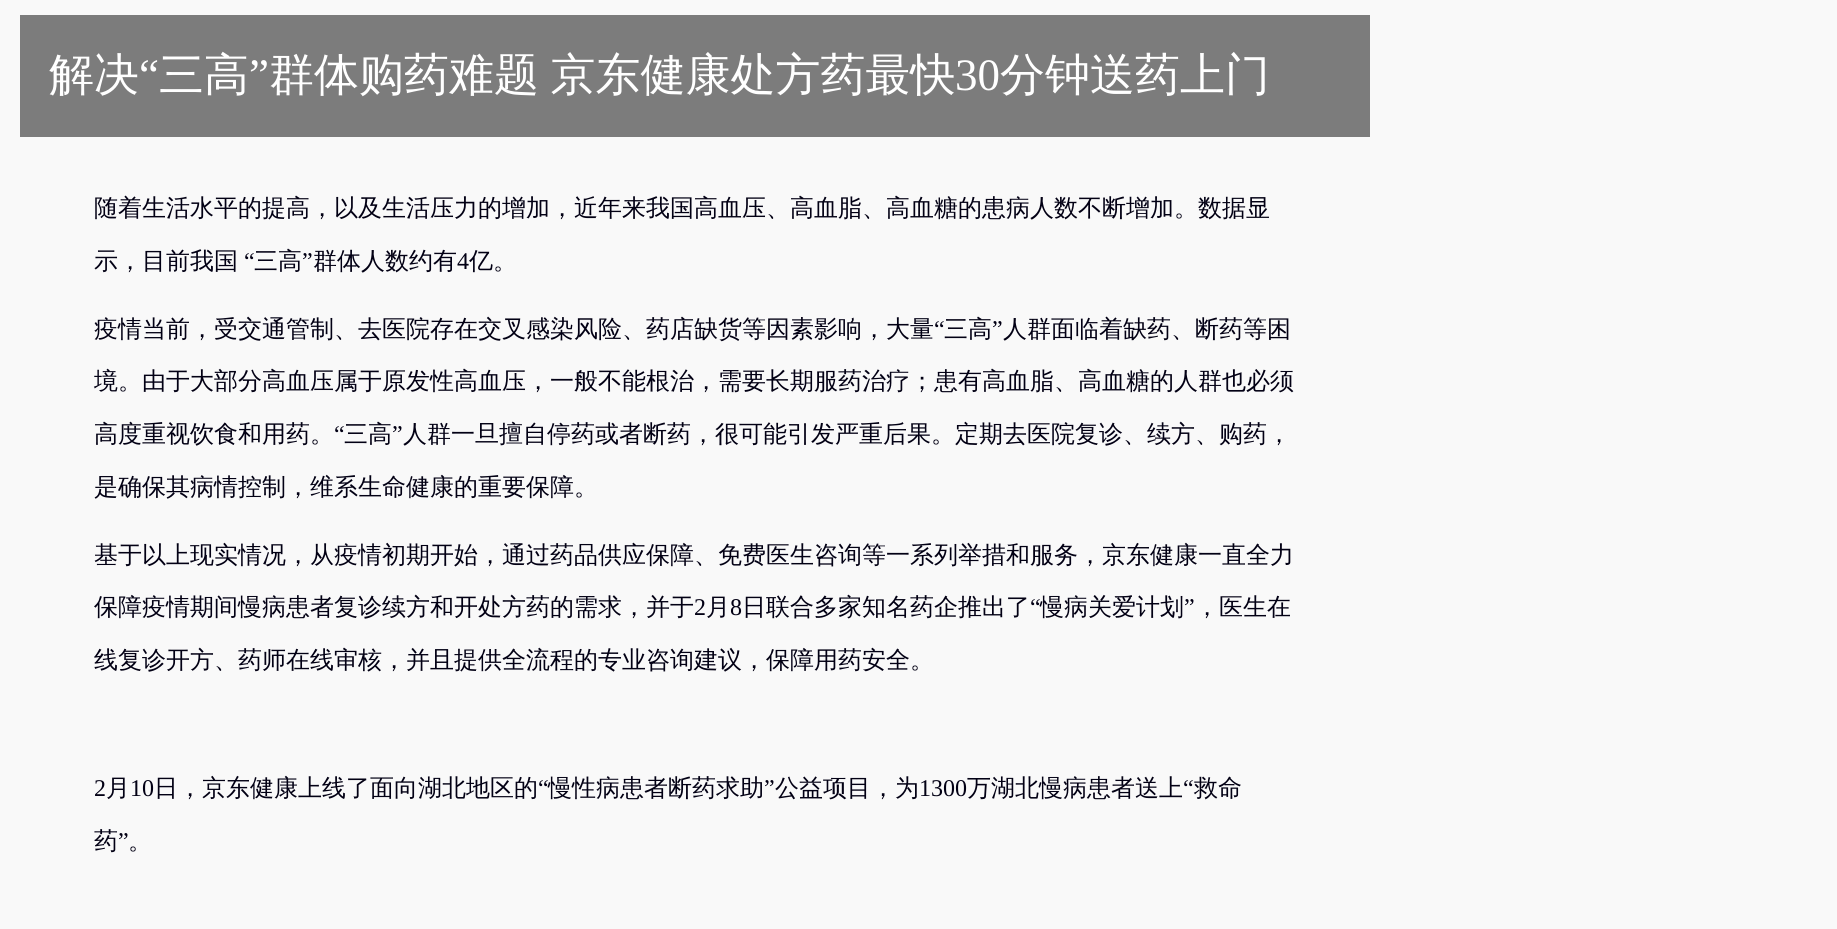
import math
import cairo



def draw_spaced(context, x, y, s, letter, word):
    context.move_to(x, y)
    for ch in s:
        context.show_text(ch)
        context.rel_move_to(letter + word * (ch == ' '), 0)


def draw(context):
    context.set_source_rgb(249 / 255, 249 / 255, 249 / 255)
    context.paint()
    context.set_source_rgb(124 / 255, 124 / 255, 124 / 255)
    context.rectangle(20, 15, 1350, 122)
    context.fill()
    context.select_font_face("WenQuanYi Zen Hei Medium")
    context.set_font_size(45)
    context.set_source_rgb(1, 1, 1)
    context.move_to(49, 90)
    context.show_text("解决")
    context.select_font_face("Liberation Serif")
    context.move_to(139, 90)
    context.show_text("“")
    context.select_font_face("WenQuanYi Zen Hei Medium")
    context.move_to(159, 90)
    context.show_text("三高")
    context.select_font_face("Liberation Serif")
    context.move_to(249, 90)
    context.show_text("”")
    context.select_font_face("WenQuanYi Zen Hei Medium")
    draw_spaced(context, 269, 90, "群体购药难题 京东健康处方药最快", 0, -2)
    context.select_font_face("Liberation Serif")
    context.move_to(955, 90)
    context.show_text("30")
    context.select_font_face("WenQuanYi Zen Hei Medium")
    context.move_to(1000, 90)
    context.show_text("分钟送药上门")
    context.set_font_size(24)
    context.set_source_rgb(2 / 255, 0, 20 / 255)
    context.move_to(94, 216)
    context.show_text("随着生活水平的提高，以及生活压力的增加，近年来我国高血压、高血脂、高血糖的患病人数不断增加。数据显")
    context.move_to(94, 269)
    context.show_text("示，目前我国")
    context.select_font_face("Liberation Serif")
    context.move_to(244, 269)
    context.show_text("“")
    context.select_font_face("WenQuanYi Zen Hei Medium")
    context.move_to(254, 269)
    context.show_text("三高")
    context.select_font_face("Liberation Serif")
    context.move_to(302, 269)
    context.show_text("”")
    context.select_font_face("WenQuanYi Zen Hei Medium")
    context.move_to(313, 269)
    context.show_text("群体人数约有")
    context.select_font_face("Liberation Serif")
    context.move_to(457, 269)
    context.show_text("4")
    context.select_font_face("WenQuanYi Zen Hei Medium")
    context.move_to(469, 269)
    context.show_text("亿。")
    context.move_to(94, 337)
    context.show_text("疫情当前，受交通管制、去医院存在交叉感染风险、药店缺货等因素影响，大量")
    context.select_font_face("Liberation Serif")
    context.move_to(934, 337)
    context.show_text("“")
    context.select_font_face("WenQuanYi Zen Hei Medium")
    context.move_to(944, 337)
    context.show_text("三高")
    context.select_font_face("Liberation Serif")
    context.move_to(992, 337)
    context.show_text("”")
    context.select_font_face("WenQuanYi Zen Hei Medium")
    context.move_to(1003, 337)
    context.show_text("人群面临着缺药、断药等困")
    context.move_to(94, 389)
    context.show_text("境。由于大部分高血压属于原发性高血压，一般不能根治，需要长期服药治疗；患有高血脂、高血糖的人群也必须")
    context.move_to(94, 442)
    context.show_text("高度重视饮食和用药。")
    context.select_font_face("Liberation Serif")
    context.move_to(334, 442)
    context.show_text("“")
    context.select_font_face("WenQuanYi Zen Hei Medium")
    context.move_to(344, 442)
    context.show_text("三高")
    context.select_font_face("Liberation Serif")
    context.move_to(392, 442)
    context.show_text("”")
    context.select_font_face("WenQuanYi Zen Hei Medium")
    context.move_to(403, 442)
    context.show_text("人群一旦擅自停药或者断药，很可能引发严重后果。定期去医院复诊、续方、购药，")
    context.move_to(94, 495)
    context.show_text("是确保其病情控制，维系生命健康的重要保障。")
    context.move_to(94, 563)
    context.show_text("基于以上现实情况，从疫情初期开始，通过药品供应保障、免费医生咨询等一系列举措和服务，京东健康一直全力")
    context.move_to(94, 615)
    context.show_text("保障疫情期间慢病患者复诊续方和开处方药的需求，并于")
    context.select_font_face("Liberation Serif")
    context.move_to(694, 615)
    context.show_text("2")
    context.select_font_face("WenQuanYi Zen Hei Medium")
    context.move_to(706, 615)
    context.show_text("月")
    context.select_font_face("Liberation Serif")
    context.move_to(730, 615)
    context.show_text("8")
    context.select_font_face("WenQuanYi Zen Hei Medium")
    context.move_to(742, 615)
    context.show_text("日联合多家知名药企推出了")
    context.select_font_face("Liberation Serif")
    context.move_to(1030, 615)
    context.show_text("“")
    context.select_font_face("WenQuanYi Zen Hei Medium")
    context.move_to(1040, 615)
    context.show_text("慢病关爱计划")
    context.select_font_face("Liberation Serif")
    context.move_to(1184, 615)
    context.show_text("”")
    context.select_font_face("WenQuanYi Zen Hei Medium")
    context.move_to(1195, 615)
    context.show_text("，医生在")
    context.move_to(94, 668)
    context.show_text("线复诊开方、药师在线审核，并且提供全流程的专业咨询建议，保障用药安全。")
    context.select_font_face("Liberation Serif")
    context.move_to(94, 796)
    context.show_text("2")
    context.select_font_face("WenQuanYi Zen Hei Medium")
    context.move_to(106, 796)
    context.show_text("月")
    context.select_font_face("Liberation Serif")
    context.move_to(130, 796)
    context.show_text("10")
    context.select_font_face("WenQuanYi Zen Hei Medium")
    context.move_to(154, 796)
    context.show_text("日，京东健康上线了面向湖北地区的")
    context.select_font_face("Liberation Serif")
    context.move_to(538, 796)
    context.show_text("“")
    context.select_font_face("WenQuanYi Zen Hei Medium")
    context.move_to(548, 796)
    context.show_text("慢性病患者断药求助")
    context.select_font_face("Liberation Serif")
    context.move_to(764, 796)
    context.show_text("”")
    context.select_font_face("WenQuanYi Zen Hei Medium")
    context.move_to(775, 796)
    context.show_text("公益项目，为")
    context.select_font_face("Liberation Serif")
    context.move_to(919, 796)
    context.show_text("1300")
    context.select_font_face("WenQuanYi Zen Hei Medium")
    context.move_to(967, 796)
    context.show_text("万湖北慢病患者送上")
    context.select_font_face("Liberation Serif")
    context.move_to(1183, 796)
    context.show_text("“")
    context.select_font_face("WenQuanYi Zen Hei Medium")
    context.move_to(1194, 796)
    context.show_text("救命")
    context.move_to(94, 849)
    context.show_text("药")
    context.select_font_face("Liberation Serif")
    context.move_to(118, 849)
    context.show_text("”")
    context.select_font_face("WenQuanYi Zen Hei Medium")
    context.move_to(128, 849)
    context.show_text("。")


surface = cairo.ImageSurface(cairo.Format.RGB24, 1837, 929)
context = cairo.Context(surface)
options = cairo.FontOptions()
options.set_hint_metrics(cairo.HintMetrics.OFF)
options.set_hint_style(cairo.HintStyle.NONE)
context.set_font_options(options)
context.set_miter_limit(4)
draw(context)
surface.write_to_png("out.png")
